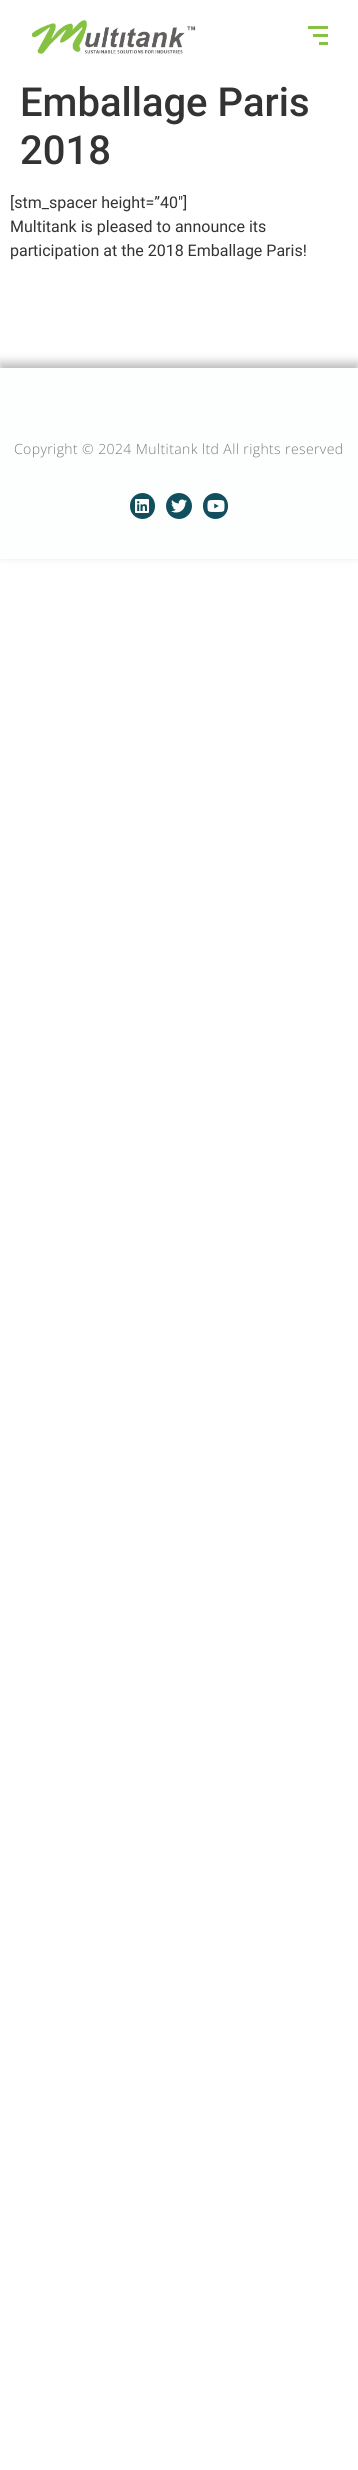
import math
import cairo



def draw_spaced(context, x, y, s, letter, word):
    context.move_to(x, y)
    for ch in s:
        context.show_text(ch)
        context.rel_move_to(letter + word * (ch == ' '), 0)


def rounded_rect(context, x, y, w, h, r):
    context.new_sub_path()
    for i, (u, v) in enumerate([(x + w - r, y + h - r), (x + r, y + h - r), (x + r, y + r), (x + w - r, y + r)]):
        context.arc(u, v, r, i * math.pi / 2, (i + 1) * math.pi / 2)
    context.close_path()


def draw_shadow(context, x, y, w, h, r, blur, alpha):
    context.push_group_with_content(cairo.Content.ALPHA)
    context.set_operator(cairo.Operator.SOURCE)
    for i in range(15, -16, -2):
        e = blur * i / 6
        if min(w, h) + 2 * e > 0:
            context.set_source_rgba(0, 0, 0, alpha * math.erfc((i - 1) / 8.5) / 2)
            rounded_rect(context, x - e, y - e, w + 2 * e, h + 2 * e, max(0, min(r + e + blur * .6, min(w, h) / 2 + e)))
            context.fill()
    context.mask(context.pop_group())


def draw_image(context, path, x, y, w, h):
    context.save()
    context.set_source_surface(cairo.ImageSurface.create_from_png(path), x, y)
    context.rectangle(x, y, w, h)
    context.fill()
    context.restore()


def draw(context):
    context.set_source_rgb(1, 1, 1)
    context.paint()
    draw_image(context, "images/1.png", 31, 20, 165, 34)
    context.set_source_rgb(133 / 255, 194 / 255, 66 / 255)
    context.rectangle(308, 26, 20, 3)
    context.fill()
    context.rectangle(313, 34, 15, 3)
    context.fill()
    context.rectangle(319, 42, 9, 3)
    context.fill()
    context.set_source_rgb(114 / 255, 114 / 255, 114 / 255)
    draw_shadow(context, 0, 363, 358, 191, 0, 5, 0.5)
    context.set_source_rgb(253 / 255, 1, 1)
    context.rectangle(0, 368, 358, 191)
    context.fill()
    context.set_source_rgb(17 / 255, 79 / 255, 95 / 255)
    rounded_rect(context, 130, 493, 25, 26, 12.5)
    context.fill()
    draw_image(context, "images/2.png", 135, 499, 14, 14)
    context.arc(179, 506, 13, 0, 2 * math.pi)
    context.fill()
    draw_image(context, "images/3.png", 171, 499, 16, 14)
    rounded_rect(context, 203, 493, 25, 26, 12.5)
    context.fill()
    draw_image(context, "images/4.png", 207, 500, 18, 12)
    context.select_font_face("Roboto Medium")
    context.set_font_size(40)
    context.set_source_rgb(51 / 255, 51 / 255, 51 / 255)
    context.move_to(20, 116)
    context.show_text("Emballage Paris")
    context.move_to(20, 164)
    context.show_text("2018")
    context.select_font_face("Roboto")
    context.set_font_size(16)
    context.move_to(10, 208)
    context.show_text("[stm_spacer height=”40″]")
    context.move_to(10, 232)
    context.show_text("Multitank is pleased to announce its")
    context.move_to(10, 256)
    context.show_text("participation at the 2018 Emballage Paris!")
    context.select_font_face("Open Sans Light")
    context.set_font_size(14)
    context.set_source_rgb(122 / 255, 122 / 255, 122 / 255)
    draw_spaced(context, 14, 454, "Copyright © 2024 Multitank ltd All rights reserved", 0.4, 0)


surface = cairo.ImageSurface(cairo.Format.RGB24, 358, 2470)
context = cairo.Context(surface)
options = cairo.FontOptions()
options.set_hint_metrics(cairo.HintMetrics.OFF)
options.set_hint_style(cairo.HintStyle.NONE)
context.set_font_options(options)
context.set_miter_limit(4)
draw(context)
surface.write_to_png("out.png")
